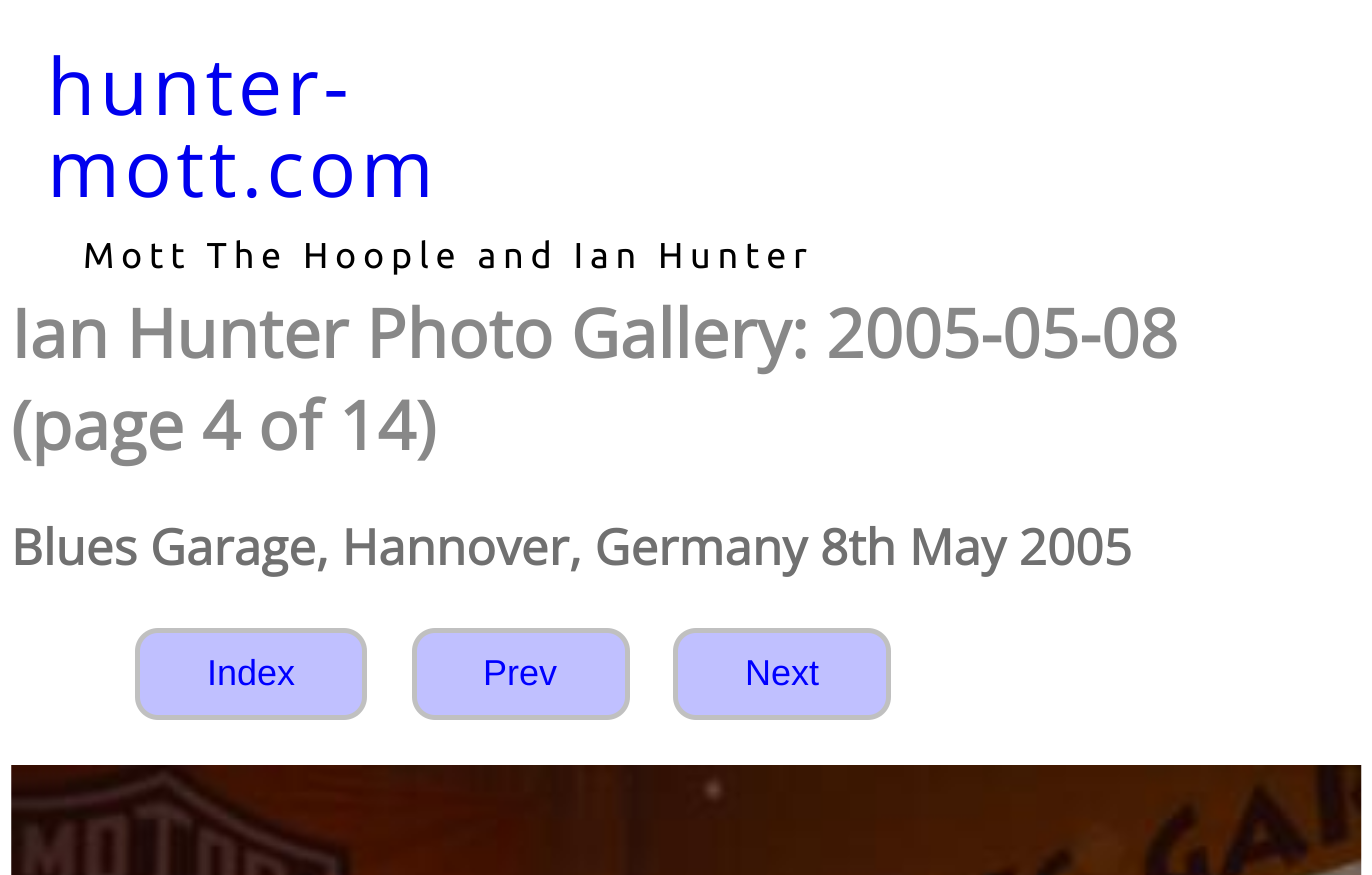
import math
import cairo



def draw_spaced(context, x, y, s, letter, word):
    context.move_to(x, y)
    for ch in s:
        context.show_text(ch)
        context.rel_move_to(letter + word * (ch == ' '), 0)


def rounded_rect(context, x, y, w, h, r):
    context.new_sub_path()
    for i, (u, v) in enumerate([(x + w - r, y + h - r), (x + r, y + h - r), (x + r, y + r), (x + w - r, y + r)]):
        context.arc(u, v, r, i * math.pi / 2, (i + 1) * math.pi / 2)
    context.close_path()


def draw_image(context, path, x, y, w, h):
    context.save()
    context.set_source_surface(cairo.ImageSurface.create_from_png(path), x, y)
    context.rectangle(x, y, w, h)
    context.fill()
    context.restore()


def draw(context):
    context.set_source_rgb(1, 1, 1)
    context.paint()
    context.set_source_rgb(192 / 255, 192 / 255, 1)
    rounded_rect(context, 137.5, 630.5, 227, 87, 20.5)
    context.fill_preserve()
    context.set_source_rgb(192 / 255, 192 / 255, 192 / 255)
    context.set_line_width(5)
    context.stroke()
    context.set_source_rgb(192 / 255, 192 / 255, 1)
    rounded_rect(context, 414.5, 630.5, 213, 87, 20.5)
    context.fill_preserve()
    context.set_source_rgb(192 / 255, 192 / 255, 192 / 255)
    context.stroke()
    context.set_source_rgb(192 / 255, 192 / 255, 1)
    rounded_rect(context, 675.5, 630.5, 213, 87, 20.5)
    context.fill_preserve()
    context.set_source_rgb(192 / 255, 192 / 255, 192 / 255)
    context.stroke()
    draw_image(context, "images/1.png", 11, 765, 1351, 110)
    context.select_font_face("Open Sans")
    context.set_font_size(78.75)
    context.set_source_rgb(0, 0, 238 / 255)
    draw_spaced(context, 47, 115, "hunter-", 4.5, 0)
    draw_spaced(context, 47, 197, "mott.com", 4.5, 0)
    context.select_font_face("Ubuntu")
    context.set_font_size(36)
    context.set_source_rgb(0, 0, 0)
    draw_spaced(context, 83, 268, "Mott The Hoople and Ian Hunter", 6.75, 0)
    context.select_font_face("Open Sans", cairo.FontSlant.NORMAL, cairo.FontWeight.BOLD)
    context.set_font_size(67.5)
    context.set_source_rgb(136 / 255, 136 / 255, 136 / 255)
    context.move_to(11, 358)
    context.show_text("Ian Hunter Photo Gallery: 2005-05-08")
    context.move_to(11, 450)
    context.show_text("(page 4 of 14)")
    context.set_font_size(49.5)
    context.set_source_rgb(112 / 255, 112 / 255, 112 / 255)
    context.move_to(11, 565)
    context.show_text("Blues Garage, Hannover, Germany 8th May 2005")
    context.select_font_face("Liberation Sans")
    context.set_font_size(36)
    context.set_source_rgb(0, 0, 1)
    context.move_to(207, 685)
    context.show_text("Index")
    context.move_to(483, 685)
    context.show_text("Prev")
    context.move_to(745, 685)
    context.show_text("Next")


surface = cairo.ImageSurface(cairo.Format.RGB24, 1372, 875)
context = cairo.Context(surface)
options = cairo.FontOptions()
options.set_hint_metrics(cairo.HintMetrics.OFF)
options.set_hint_style(cairo.HintStyle.NONE)
context.set_font_options(options)
context.set_miter_limit(4)
draw(context)
surface.write_to_png("out.png")
